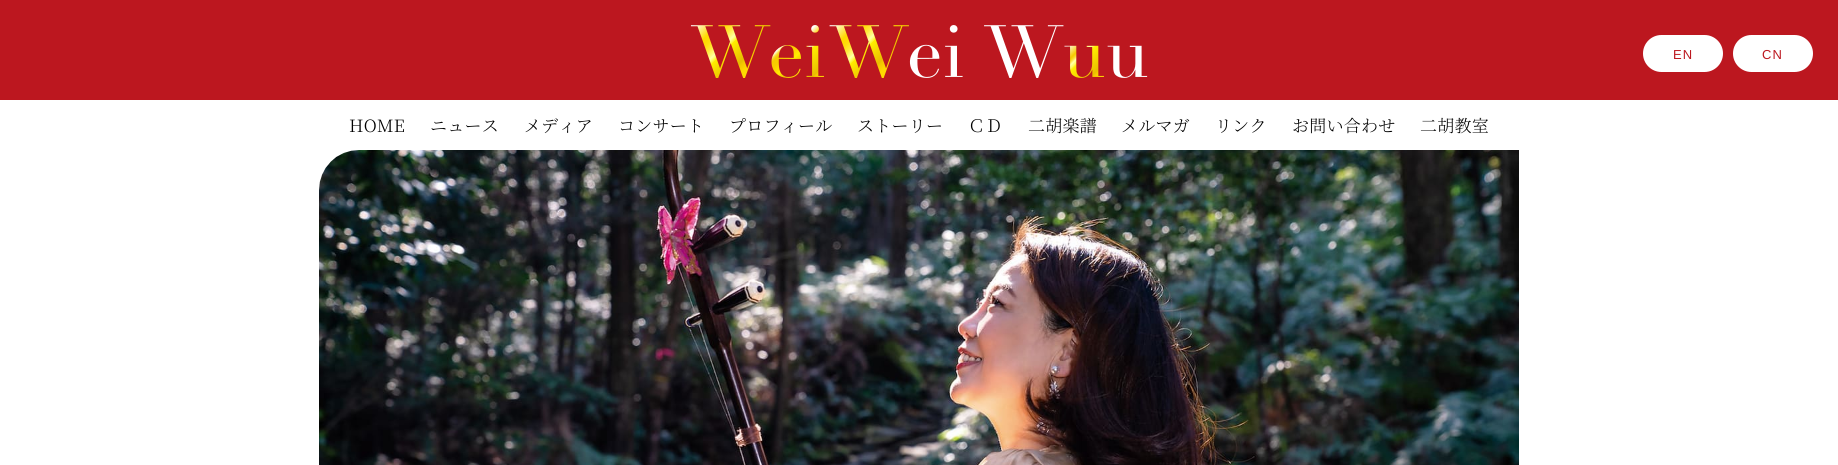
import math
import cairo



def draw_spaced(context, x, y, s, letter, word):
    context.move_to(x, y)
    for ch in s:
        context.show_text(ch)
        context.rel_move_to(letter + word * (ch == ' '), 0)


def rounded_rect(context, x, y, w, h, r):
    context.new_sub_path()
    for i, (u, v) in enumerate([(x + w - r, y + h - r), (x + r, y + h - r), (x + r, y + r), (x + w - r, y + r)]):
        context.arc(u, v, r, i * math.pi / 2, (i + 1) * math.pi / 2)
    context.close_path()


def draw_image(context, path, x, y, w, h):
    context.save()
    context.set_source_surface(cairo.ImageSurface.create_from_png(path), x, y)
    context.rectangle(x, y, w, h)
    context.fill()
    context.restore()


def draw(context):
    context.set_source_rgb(1, 1, 1)
    context.paint()
    context.set_source_rgb(188 / 255, 23 / 255, 31 / 255)
    context.rectangle(0, 0, 1838, 100)
    context.fill()
    draw_image(context, "images/1.png", 690, 25, 458, 53)
    context.set_source_rgb(1, 1, 1)
    rounded_rect(context, 1643, 35, 80, 37, 18.5)
    context.fill()
    rounded_rect(context, 1733, 35, 80, 37, 18.5)
    context.fill()
    draw_image(context, "images/2.png", 319, 150, 1200, 315)
    context.select_font_face("Liberation Sans")
    context.set_font_size(13)
    context.set_source_rgb(188 / 255, 23 / 255, 31 / 255)
    draw_spaced(context, 1673, 59, "EN", 1, 0)
    draw_spaced(context, 1762, 59, "CN", 1, 0)
    context.select_font_face("Noto Serif JP ExtraLight")
    context.set_font_size(17)
    context.set_source_rgb(0, 0, 0)
    draw_spaced(context, 349, 132, "HOME", 0.25, 0)
    draw_spaced(context, 430, 132, "ニュース", 0.25, 0)
    draw_spaced(context, 524, 132, "メディア", 0.25, 0)
    draw_spaced(context, 618, 132, "コンサート", 0.25, 0)
    draw_spaced(context, 729, 132, "プロフィール", 0.25, 0)
    draw_spaced(context, 857, 132, "ストーリー", 0.25, 0)
    draw_spaced(context, 968, 132, "ＣＤ", 0.25, 0)
    draw_spaced(context, 1028, 132, "二胡楽譜", 0.25, 0)
    draw_spaced(context, 1121, 132, "メルマガ", 0.25, 0)
    draw_spaced(context, 1215, 132, "リンク", 0.25, 0)
    draw_spaced(context, 1292, 132, "お問い合わせ", 0.25, 0)
    draw_spaced(context, 1420, 132, "二胡教室", 0.25, 0)


surface = cairo.ImageSurface(cairo.Format.RGB24, 1838, 465)
context = cairo.Context(surface)
options = cairo.FontOptions()
options.set_hint_metrics(cairo.HintMetrics.OFF)
options.set_hint_style(cairo.HintStyle.NONE)
context.set_font_options(options)
context.set_miter_limit(4)
draw(context)
surface.write_to_png("out.png")
